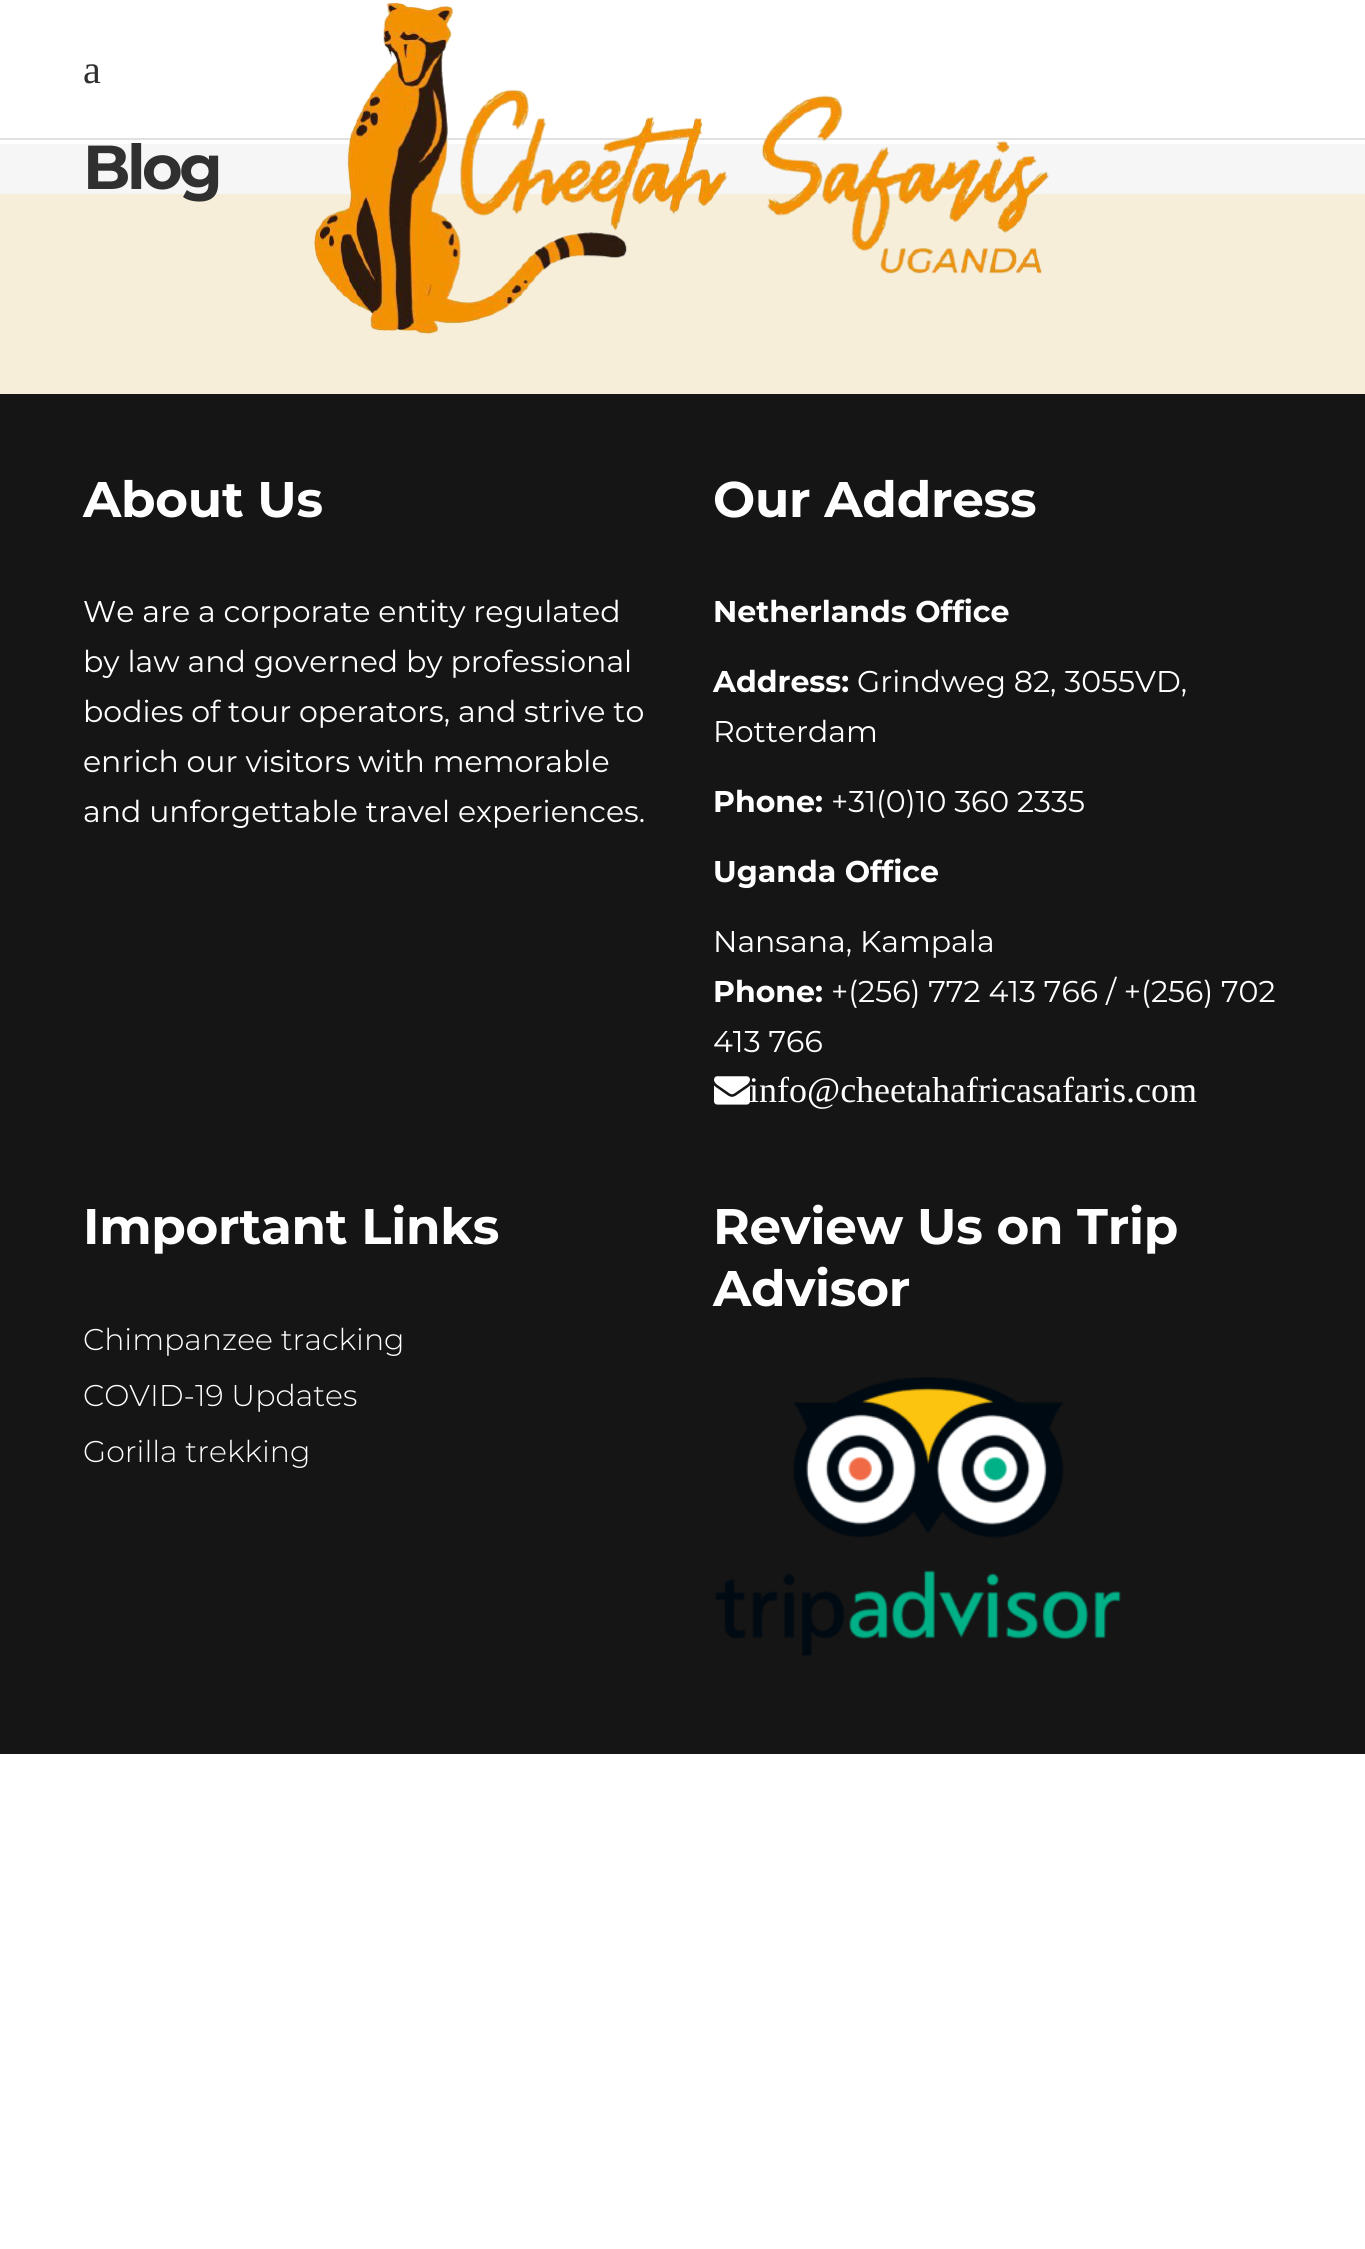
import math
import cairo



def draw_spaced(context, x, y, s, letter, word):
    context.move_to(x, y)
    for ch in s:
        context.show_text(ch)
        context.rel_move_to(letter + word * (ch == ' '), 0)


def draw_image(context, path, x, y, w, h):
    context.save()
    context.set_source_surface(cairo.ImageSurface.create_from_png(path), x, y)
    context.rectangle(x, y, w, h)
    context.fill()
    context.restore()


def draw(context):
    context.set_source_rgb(1, 1, 1)
    context.paint()
    context.set_source_rgb(225 / 255, 225 / 255, 225 / 255)
    context.rectangle(0, 138, 1365, 2)
    context.fill()
    context.set_source_rgb(246 / 255, 246 / 255, 246 / 255)
    context.rectangle(0, 144, 1365, 50)
    context.fill()
    context.set_source_rgb(247 / 255, 238 / 255, 217 / 255)
    context.rectangle(0, 194, 1365, 200)
    context.fill()
    draw_image(context, "images/1.png", 313, 2, 736, 332)
    context.set_source_rgb(21 / 255, 21 / 255, 21 / 255)
    context.rectangle(0, 394, 1365, 1360)
    context.fill()
    draw_image(context, "images/2.png", 714, 1076, 36, 29)
    draw_image(context, "images/3.png", 715, 1377, 406, 279)
    context.select_font_face("Liberation Serif")
    context.set_font_size(40)
    context.set_source_rgb(48 / 255, 48 / 255, 48 / 255)
    context.move_to(83, 83)
    context.show_text("a")
    context.select_font_face("Montserrat", cairo.FontSlant.NORMAL, cairo.FontWeight.BOLD)
    context.set_font_size(62)
    draw_spaced(context, 83, 189, "Blog", -3.5, 0)
    context.set_font_size(50)
    context.set_source_rgb(1, 1, 1)
    draw_spaced(context, 83, 517, "About Us", -0.25, 0)
    context.select_font_face("Montserrat")
    context.set_font_size(30)
    context.move_to(83, 622)
    context.show_text("We are a corporate entity regulated")
    context.move_to(83, 672)
    context.show_text("by law and governed by professional")
    context.move_to(83, 722)
    context.show_text("bodies of tour operators, and strive to")
    context.move_to(83, 772)
    context.show_text("enrich our visitors with memorable")
    context.move_to(83, 822)
    context.show_text("and unforgettable travel experiences.")
    context.select_font_face("Montserrat", cairo.FontSlant.NORMAL, cairo.FontWeight.BOLD)
    context.set_font_size(50)
    draw_spaced(context, 713, 517, "Our Address", -0.25, 0)
    context.set_font_size(30)
    context.move_to(713, 622)
    context.show_text("Netherlands Office")
    context.move_to(713, 692)
    context.show_text("Address:")
    context.select_font_face("Montserrat")
    context.move_to(857, 692)
    context.show_text("Grindweg 82, 3055VD,")
    context.move_to(713, 742)
    context.show_text("Rotterdam")
    context.select_font_face("Montserrat", cairo.FontSlant.NORMAL, cairo.FontWeight.BOLD)
    context.move_to(713, 812)
    context.show_text("Phone:")
    context.select_font_face("Montserrat")
    context.move_to(831, 812)
    context.show_text("+31(0)10 360 2335")
    context.select_font_face("Montserrat", cairo.FontSlant.NORMAL, cairo.FontWeight.BOLD)
    context.move_to(713, 882)
    context.show_text("Uganda Office")
    context.select_font_face("Montserrat")
    context.move_to(713, 952)
    context.show_text("Nansana, Kampala")
    context.select_font_face("Montserrat", cairo.FontSlant.NORMAL, cairo.FontWeight.BOLD)
    context.move_to(713, 1002)
    context.show_text("Phone:")
    context.select_font_face("Montserrat")
    context.move_to(831, 1002)
    context.show_text("+(256) 772 413 766 / +(256) 702")
    context.move_to(713, 1052)
    context.show_text("413 766")
    context.select_font_face("Liberation Serif")
    context.set_font_size(36)
    context.move_to(749, 1102)
    context.show_text("info@cheetahafricasafaris.com")
    context.select_font_face("Montserrat", cairo.FontSlant.NORMAL, cairo.FontWeight.BOLD)
    context.set_font_size(50)
    draw_spaced(context, 83, 1244, "Important Links", -0.25, 0)
    context.select_font_face("Montserrat Light")
    context.set_font_size(30)
    context.move_to(83, 1350)
    context.show_text("Chimpanzee tracking")
    context.move_to(83, 1406)
    context.show_text("COVID-19 Updates")
    context.move_to(83, 1462)
    context.show_text("Gorilla trekking")
    context.select_font_face("Montserrat", cairo.FontSlant.NORMAL, cairo.FontWeight.BOLD)
    context.set_font_size(50)
    draw_spaced(context, 713, 1244, "Review Us on Trip", -0.25, 0)
    draw_spaced(context, 713, 1306, "Advisor", -0.25, 0)


surface = cairo.ImageSurface(cairo.Format.RGB24, 1365, 2249)
context = cairo.Context(surface)
options = cairo.FontOptions()
options.set_hint_metrics(cairo.HintMetrics.OFF)
options.set_hint_style(cairo.HintStyle.NONE)
context.set_font_options(options)
context.set_miter_limit(4)
draw(context)
surface.write_to_png("out.png")
